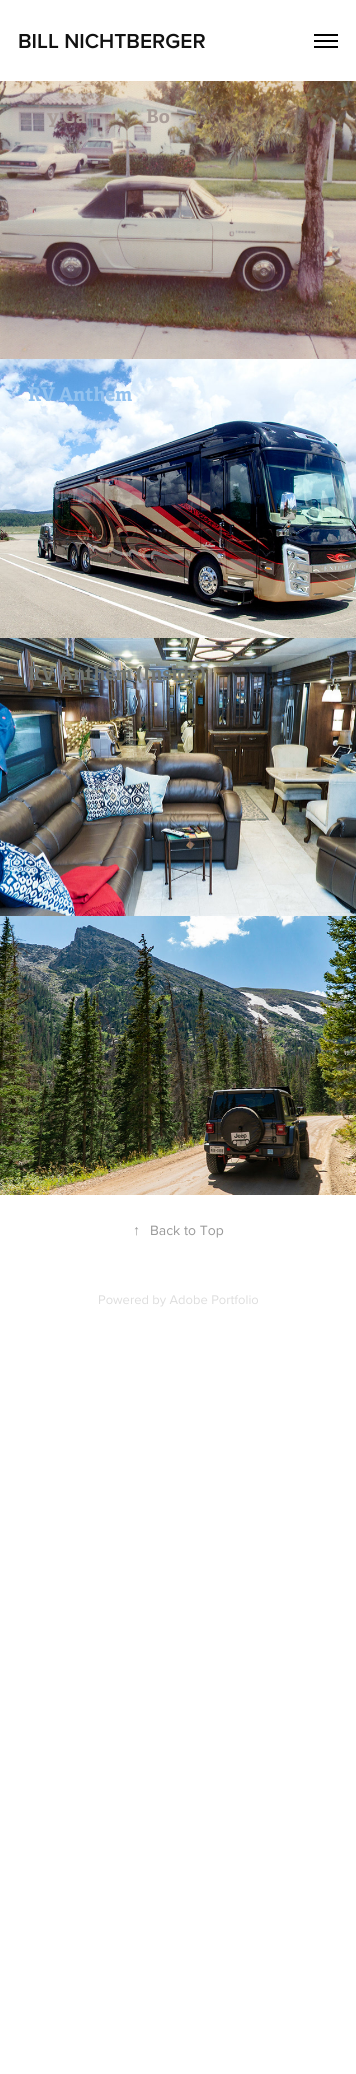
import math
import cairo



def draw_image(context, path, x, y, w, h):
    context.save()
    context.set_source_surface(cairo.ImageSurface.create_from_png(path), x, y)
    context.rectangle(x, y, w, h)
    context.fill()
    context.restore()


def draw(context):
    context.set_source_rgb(1, 1, 1)
    context.paint()
    context.set_source_rgb(0, 0, 0)
    context.rectangle(314, 34, 24, 2)
    context.fill()
    context.rectangle(314, 40, 24, 2)
    context.fill()
    context.rectangle(314, 46, 24, 2)
    context.fill()
    draw_image(context, "images/1.png", 0, 81, 356, 278)
    draw_image(context, "images/2.png", 0, 359, 356, 279)
    draw_image(context, "images/3.png", 0, 638, 356, 278)
    draw_image(context, "images/4.png", 0, 916, 356, 279)
    context.select_font_face("Proxima Nova SemiBold")
    context.set_font_size(21)
    context.set_source_rgb(17 / 255, 17 / 255, 17 / 255)
    context.move_to(18, 48)
    context.show_text("BILL NICHTBERGER")
    context.select_font_face("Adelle", cairo.FontSlant.NORMAL, cairo.FontWeight.BOLD)
    context.set_font_size(19)
    context.set_source_rgb(169 / 255, 157 / 255, 152 / 255)
    context.move_to(47, 123)
    context.show_text("y Ca")
    context.move_to(146, 123)
    context.show_text("Bo")
    context.set_source_rgb(147 / 255, 194 / 255, 239 / 255)
    context.move_to(28, 401)
    context.show_text("RV Anthem")
    context.set_source_rgb(114 / 255, 118 / 255, 113 / 255)
    context.move_to(28, 680)
    context.show_text("RV Anthem (Inside)")
    context.select_font_face("Liberation Serif")
    context.set_font_size(14)
    context.set_source_rgb(153 / 255, 153 / 255, 153 / 255)
    context.move_to(133, 1235)
    context.show_text("↑")
    context.select_font_face("Proxima Nova")
    context.move_to(150, 1235)
    context.show_text("Back to Top")
    context.set_font_size(13)
    context.set_source_rgb(221 / 255, 221 / 255, 221 / 255)
    context.move_to(98, 1304)
    context.show_text("Powered by Adobe Portfolio")


surface = cairo.ImageSurface(cairo.Format.RGB24, 356, 2074)
context = cairo.Context(surface)
options = cairo.FontOptions()
options.set_hint_metrics(cairo.HintMetrics.OFF)
options.set_hint_style(cairo.HintStyle.NONE)
context.set_font_options(options)
context.set_miter_limit(4)
draw(context)
surface.write_to_png("out.png")
